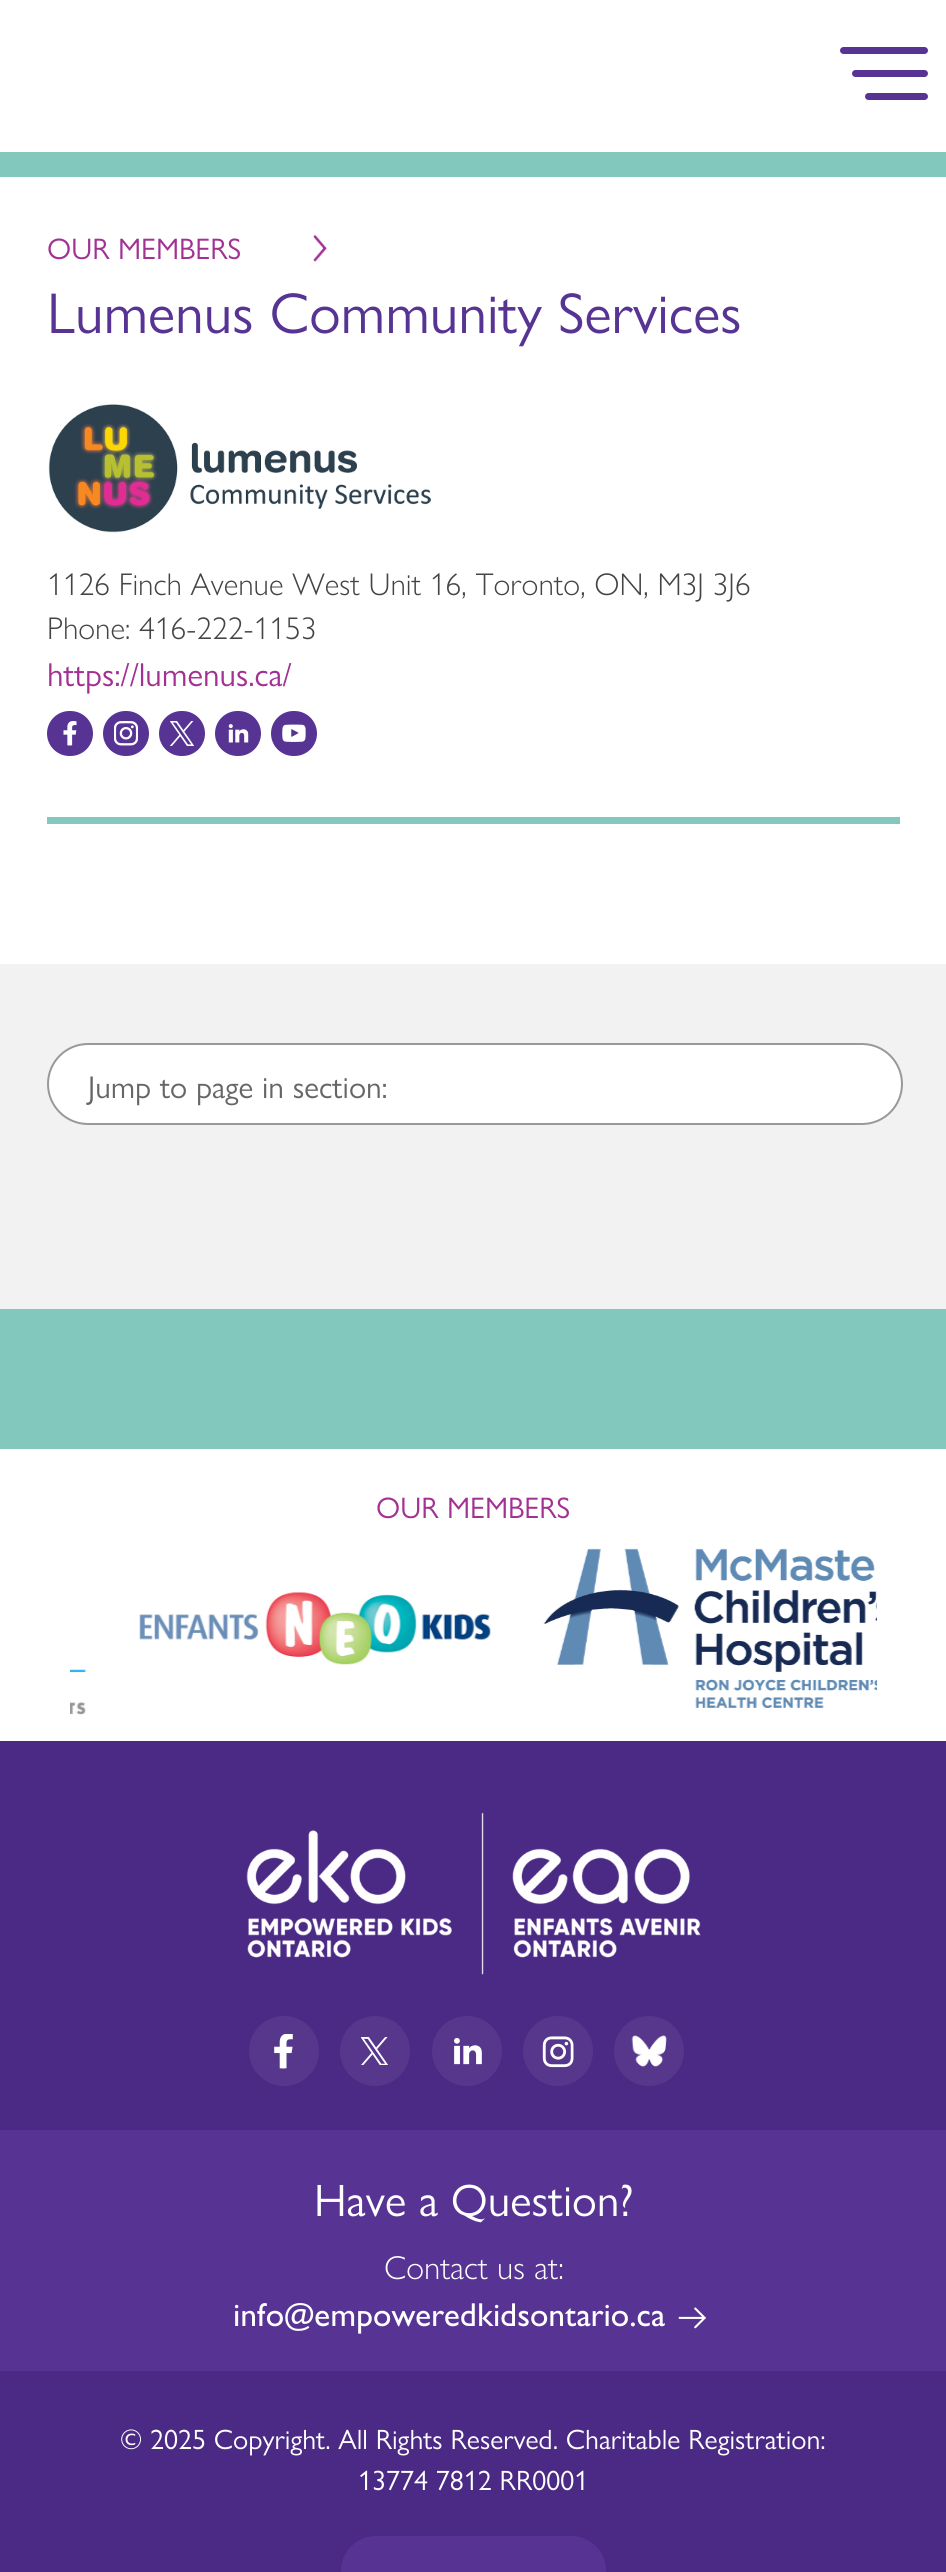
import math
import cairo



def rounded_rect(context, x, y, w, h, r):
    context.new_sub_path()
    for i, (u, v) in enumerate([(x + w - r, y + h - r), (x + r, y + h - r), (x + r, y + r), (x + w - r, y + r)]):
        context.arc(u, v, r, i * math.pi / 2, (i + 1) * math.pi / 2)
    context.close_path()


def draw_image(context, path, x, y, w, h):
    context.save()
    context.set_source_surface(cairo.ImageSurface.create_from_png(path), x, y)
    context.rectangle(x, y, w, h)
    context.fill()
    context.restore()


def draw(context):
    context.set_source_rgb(1, 1, 1)
    context.paint()
    context.set_source_rgb(87 / 255, 52 / 255, 148 / 255)
    rounded_rect(context, 840, 47, 88, 7, 3.5)
    context.fill()
    rounded_rect(context, 852, 70, 76, 7, 3.5)
    context.fill()
    rounded_rect(context, 865, 93, 63, 7, 3.5)
    context.fill()
    context.set_source_rgb(131 / 255, 200 / 255, 188 / 255)
    context.rectangle(0, 152, 946, 25)
    context.fill()
    draw_image(context, "images/1.png", 313, 234, 14, 28)
    context.rectangle(47, 817, 853, 7)
    context.fill()
    draw_image(context, "images/2.png", 48, 404, 383, 129)
    context.set_source_rgb(87 / 255, 52 / 255, 148 / 255)
    rounded_rect(context, 47, 711, 46, 45, 22.5)
    context.fill()
    draw_image(context, "images/3.png", 63, 721, 14, 25)
    rounded_rect(context, 103, 711, 46, 45, 22.5)
    context.fill()
    draw_image(context, "images/4.png", 114, 721, 24, 25)
    rounded_rect(context, 159, 711, 46, 45, 22.5)
    context.fill()
    draw_image(context, "images/5.png", 170, 721, 24, 25)
    rounded_rect(context, 215, 711, 46, 45, 22.5)
    context.fill()
    draw_image(context, "images/6.png", 228, 724, 21, 19)
    rounded_rect(context, 271, 711, 46, 45, 22.5)
    context.fill()
    draw_image(context, "images/7.png", 282, 724, 24, 18)
    context.set_source_rgb(242 / 255, 242 / 255, 242 / 255)
    context.rectangle(0, 964, 946, 345)
    context.fill()
    context.set_source_rgb(1, 1, 1)
    rounded_rect(context, 48, 1044, 854, 80, 40)
    context.fill_preserve()
    context.set_source_rgb(153 / 255, 153 / 255, 153 / 255)
    context.stroke()
    context.set_source_rgb(131 / 255, 200 / 255, 188 / 255)
    context.rectangle(0, 1309, 946, 140)
    context.fill()
    draw_image(context, "images/8.png", 139, 1592, 352, 73)
    draw_image(context, "images/9.png", 543, 1548, 334, 160)
    draw_image(context, "images/10.png", 70, 1669, 16, 46)
    context.set_source_rgb(87 / 255, 52 / 255, 148 / 255)
    context.rectangle(0, 2130, 946, 241)
    context.fill()
    context.set_source_rgb(75 / 255, 42 / 255, 133 / 255)
    context.rectangle(0, 1741, 946, 389)
    context.fill()
    draw_image(context, "images/11.png", 246, 1812, 455, 163)
    context.set_source_rgb(86 / 255, 55 / 255, 140 / 255)
    context.arc(284, 2051, 35, 0, 2 * math.pi)
    context.fill()
    draw_image(context, "images/12.png", 274, 2034, 19, 35)
    context.arc(375, 2051, 35, 0, 2 * math.pi)
    context.fill()
    draw_image(context, "images/13.png", 361, 2037, 27, 28)
    context.arc(467, 2051, 35, 0, 2 * math.pi)
    context.fill()
    draw_image(context, "images/14.png", 454, 2037, 28, 28)
    context.arc(558, 2051, 35, 0, 2 * math.pi)
    context.fill()
    draw_image(context, "images/15.png", 542, 2036, 32, 32)
    context.arc(649, 2051, 35, 0, 2 * math.pi)
    context.fill()
    draw_image(context, "images/16.png", 631, 2035, 36, 32)
    draw_image(context, "images/17.png", 678, 2307, 28, 22)
    context.set_source_rgb(75 / 255, 42 / 255, 133 / 255)
    context.rectangle(0, 2371, 946, 201)
    context.fill()
    context.set_source_rgb(87 / 255, 52 / 255, 148 / 255)
    rounded_rect(context, 341, 2536, 265, 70, 35)
    context.fill()
    context.select_font_face("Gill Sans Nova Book")
    context.set_font_size(29.75)
    context.set_source_rgb(162 / 255, 49 / 255, 147 / 255)
    context.move_to(47, 259)
    context.show_text("OUR MEMBERS")
    context.set_font_size(57.75)
    context.set_source_rgb(87 / 255, 52 / 255, 148 / 255)
    context.move_to(47, 333)
    context.show_text("Lumenus Community Services")
    context.select_font_face("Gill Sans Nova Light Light")
    context.set_font_size(31.5)
    context.set_source_rgb(68 / 255, 68 / 255, 68 / 255)
    context.move_to(47, 595)
    context.show_text("1126 Finch Avenue West Unit 16, Toronto, ON, M3J 3J6")
    context.move_to(47, 639)
    context.show_text("Phone: 416-222-1153")
    context.select_font_face("Gill Sans Nova Book")
    context.set_font_size(33.25)
    context.set_source_rgb(162 / 255, 49 / 255, 147 / 255)
    context.move_to(47, 686)
    context.show_text("https://lumenus.ca/")
    context.set_font_size(31.5)
    context.set_source_rgb(102 / 255, 102 / 255, 102 / 255)
    context.move_to(88, 1098)
    context.show_text("Jump to page in section:")
    context.set_font_size(29.75)
    context.set_source_rgb(162 / 255, 49 / 255, 147 / 255)
    context.move_to(376, 1518)
    context.show_text("OUR MEMBERS")
    context.set_font_size(45.5)
    context.set_source_rgb(1, 1, 1)
    context.move_to(314, 2216)
    context.show_text("Have a Question?")
    context.select_font_face("Gill Sans Nova Light Light")
    context.set_font_size(33.25)
    context.move_to(384, 2279)
    context.show_text("Contact us at:")
    context.select_font_face("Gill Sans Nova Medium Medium")
    context.move_to(233, 2326)
    context.show_text("info@empoweredkidsontario.ca")
    context.select_font_face("Gill Sans Nova Book")
    context.set_font_size(28)
    context.move_to(120, 2449)
    context.show_text("© 2025 Copyright. All Rights Reserved. Charitable Registration:")
    context.move_to(358, 2490)
    context.show_text("13774 7812 RR0001")


surface = cairo.ImageSurface(cairo.Format.RGB24, 946, 2572)
context = cairo.Context(surface)
options = cairo.FontOptions()
options.set_hint_metrics(cairo.HintMetrics.OFF)
options.set_hint_style(cairo.HintStyle.NONE)
context.set_font_options(options)
context.set_miter_limit(4)
draw(context)
surface.write_to_png("out.png")
